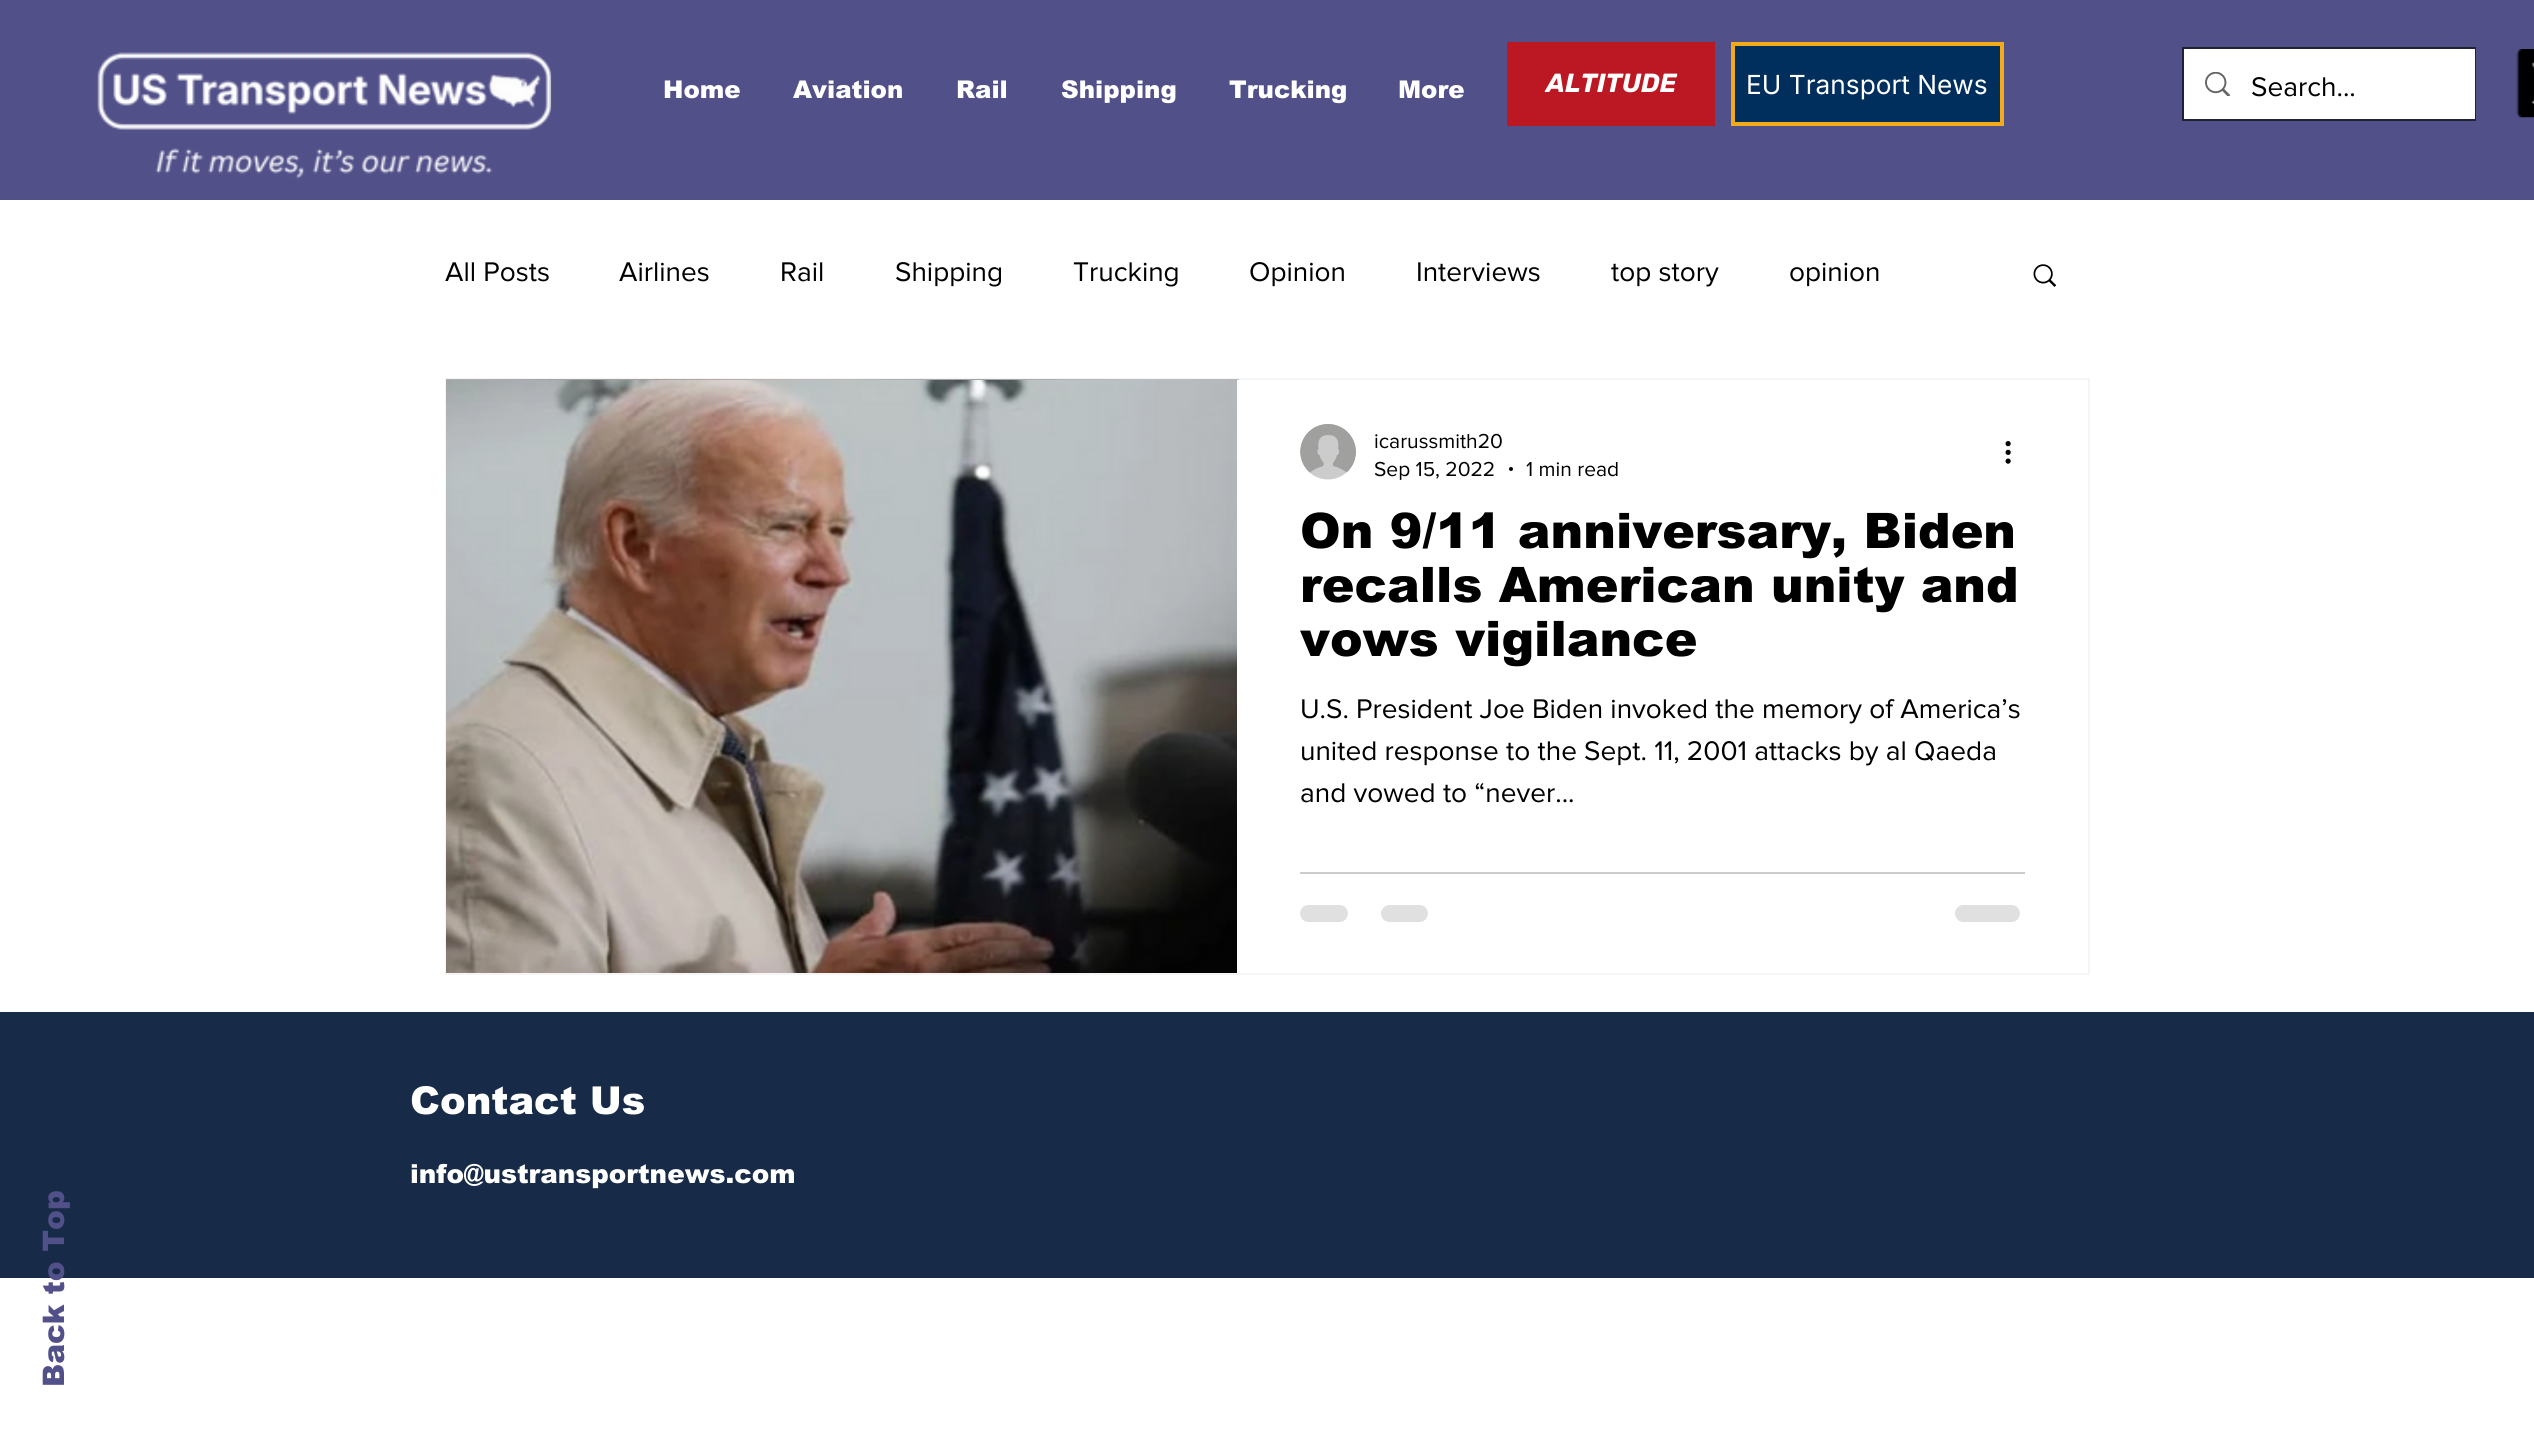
import math
import cairo



def rounded_rect(context, x, y, w, h, r):
    context.new_sub_path()
    for i, (u, v) in enumerate([(x + w - r, y + h - r), (x + r, y + h - r), (x + r, y + r), (x + w - r, y + r)]):
        context.arc(u, v, r, i * math.pi / 2, (i + 1) * math.pi / 2)
    context.close_path()


def draw_image(context, path, x, y, w, h):
    context.save()
    context.set_source_surface(cairo.ImageSurface.create_from_png(path), x, y)
    context.rectangle(x, y, w, h)
    context.fill()
    context.restore()


def draw(context):
    context.set_source_rgb(1, 1, 1)
    context.paint()
    context.set_source_rgb(82 / 255, 80 / 255, 137 / 255)
    context.rectangle(0, 0, 2534, 200)
    context.fill()
    draw_image(context, "images/1.png", 97, 52, 455, 127)
    context.set_source_rgb(188 / 255, 24 / 255, 35 / 255)
    context.rectangle(1507, 42, 208, 84)
    context.fill()
    context.set_source_rgb(0, 46 / 255, 93 / 255)
    context.rectangle(1733, 44, 269, 80)
    context.fill_preserve()
    context.set_source_rgb(242 / 255, 171 / 255, 26 / 255)
    context.set_line_width(4)
    context.stroke()
    context.rectangle(2183, 48, 292, 72)
    context.set_source_rgb(33 / 255, 32 / 255, 55 / 255)
    context.set_line_width(2)
    context.stroke()
    context.set_source_rgb(1, 1, 1)
    context.rectangle(2184, 49, 291, 70)
    context.fill()
    draw_image(context, "images/2.png", 2205, 72, 25, 24)
    draw_image(context, "images/3.png", 2516, 49, 18, 69)
    draw_image(context, "images/4.png", 2033, 264, 24, 23)
    context.rectangle(446, 379, 1643, 595)
    context.set_source_rgb(245 / 255, 245 / 255, 245 / 255)
    context.stroke()
    draw_image(context, "images/5.png", 446, 379, 793, 1)
    draw_image(context, "images/6.png", 446, 380, 791, 593)
    draw_image(context, "images/7.png", 1300, 424, 56, 56)
    context.set_source_rgb(0, 0, 0)
    context.arc(1511, 469, 2, 0, 2 * math.pi)
    context.fill()
    draw_image(context, "images/8.png", 2005, 441, 6, 23)
    context.set_source_rgb(204 / 255, 204 / 255, 204 / 255)
    context.rectangle(1300, 872, 725, 2)
    context.fill()
    context.set_source_rgb(224 / 255, 224 / 255, 224 / 255)
    rounded_rect(context, 1300, 905, 48, 17, 8.5)
    context.fill()
    rounded_rect(context, 1381, 905, 47, 17, 8.5)
    context.fill()
    rounded_rect(context, 1955, 905, 65, 17, 8.5)
    context.fill()
    context.set_source_rgb(23 / 255, 42 / 255, 71 / 255)
    context.rectangle(0, 1012, 2534, 266)
    context.fill()
    context.select_font_face("arial Black")
    context.set_font_size(24.5)
    context.set_source_rgb(1, 1, 1)
    context.move_to(663, 98)
    context.show_text("Home")
    context.move_to(793, 98)
    context.show_text("Aviation")
    context.move_to(956, 98)
    context.show_text("Rail")
    context.move_to(1061, 98)
    context.show_text("Shipping")
    context.move_to(1229, 98)
    context.show_text("Trucking")
    context.move_to(1398, 98)
    context.show_text("More")
    context.select_font_face("Rubik", cairo.FontSlant.ITALIC, cairo.FontWeight.BOLD)
    context.set_font_size(26.25)
    context.move_to(1546, 92)
    context.show_text("ALTITUDE")
    context.select_font_face("Inter")
    context.move_to(1746, 94)
    context.show_text("EU Transport News")
    context.select_font_face("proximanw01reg")
    context.set_font_size(28)
    context.set_source_rgb(0, 0, 0)
    context.move_to(2251, 96)
    context.show_text("Search...")
    context.move_to(445, 281)
    context.show_text("All Posts")
    context.move_to(619, 281)
    context.show_text("Airlines")
    context.move_to(780, 281)
    context.show_text("Rail")
    context.move_to(895, 281)
    context.show_text("Shipping")
    context.move_to(1073, 281)
    context.show_text("Trucking")
    context.move_to(1249, 281)
    context.show_text("Opinion")
    context.move_to(1416, 281)
    context.show_text("Interviews")
    context.move_to(1611, 281)
    context.show_text("top story")
    context.move_to(1789, 281)
    context.show_text("opinion")
    context.set_font_size(21)
    context.move_to(1374, 448)
    context.show_text("icarussmith20")
    context.move_to(1374, 476)
    context.show_text("Sep 15, 2022")
    context.move_to(1526, 476)
    context.show_text("1 min read")
    context.select_font_face("arial Black")
    context.set_font_size(49)
    context.move_to(1300, 548)
    context.show_text("On 9/11 anniversary, Biden")
    context.move_to(1300, 602)
    context.show_text("recalls American unity and")
    context.move_to(1300, 656)
    context.show_text("vows vigilance")
    context.select_font_face("proximanw01reg")
    context.set_font_size(28)
    context.move_to(1300, 718)
    context.show_text("U.S. President Joe Biden invoked the memory of America’s")
    context.move_to(1300, 760)
    context.show_text("united response to the Sept. 11, 2001 attacks by al Qaeda")
    context.move_to(1300, 802)
    context.show_text("and vowed to “never...")
    context.select_font_face("arial Black")
    context.set_font_size(38.5)
    context.set_source_rgb(1, 1, 1)
    context.move_to(410, 1114)
    context.show_text("Contact Us")
    context.set_font_size(26.25)
    context.move_to(410, 1183)
    context.show_text("info@ustransportnews.com")
    context.set_font_size(29.75)
    context.set_source_rgb(82 / 255, 80 / 255, 137 / 255)
    context.save()
    context.translate(64, 1387)
    context.rotate(-90 * math.pi / 180)
    context.move_to(0, 0)
    context.show_text("Back to Top")
    context.restore()


surface = cairo.ImageSurface(cairo.Format.RGB24, 2534, 1449)
context = cairo.Context(surface)
options = cairo.FontOptions()
options.set_hint_metrics(cairo.HintMetrics.OFF)
options.set_hint_style(cairo.HintStyle.NONE)
context.set_font_options(options)
context.set_miter_limit(4)
draw(context)
surface.write_to_png("out.png")
